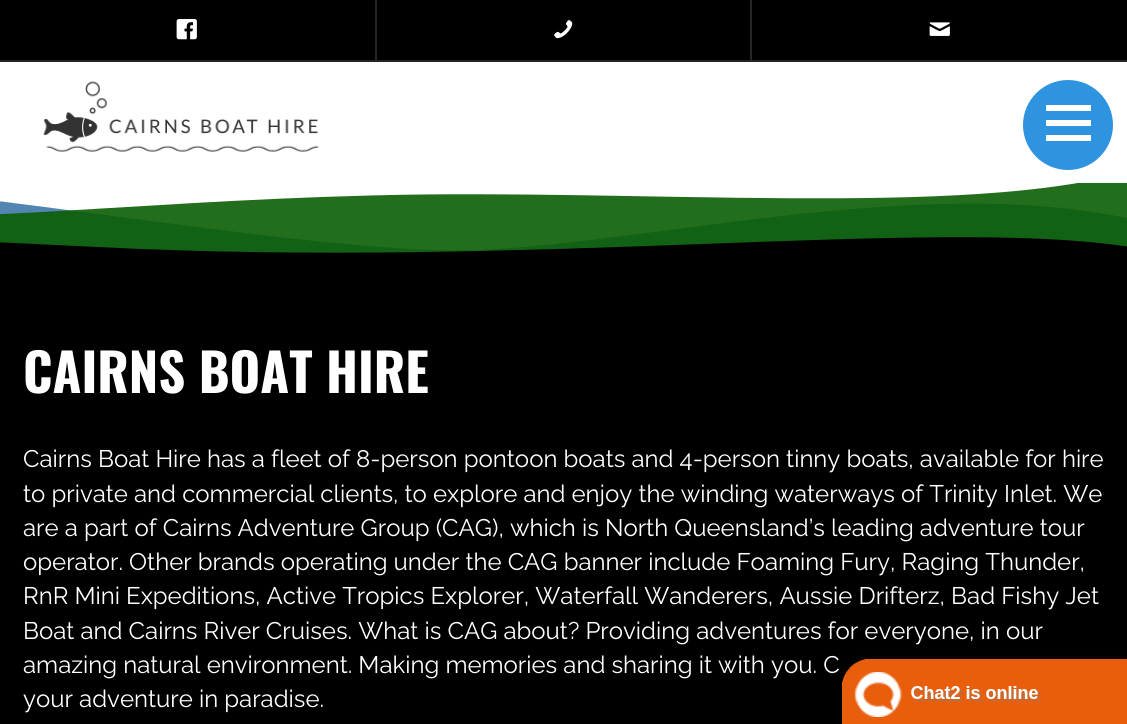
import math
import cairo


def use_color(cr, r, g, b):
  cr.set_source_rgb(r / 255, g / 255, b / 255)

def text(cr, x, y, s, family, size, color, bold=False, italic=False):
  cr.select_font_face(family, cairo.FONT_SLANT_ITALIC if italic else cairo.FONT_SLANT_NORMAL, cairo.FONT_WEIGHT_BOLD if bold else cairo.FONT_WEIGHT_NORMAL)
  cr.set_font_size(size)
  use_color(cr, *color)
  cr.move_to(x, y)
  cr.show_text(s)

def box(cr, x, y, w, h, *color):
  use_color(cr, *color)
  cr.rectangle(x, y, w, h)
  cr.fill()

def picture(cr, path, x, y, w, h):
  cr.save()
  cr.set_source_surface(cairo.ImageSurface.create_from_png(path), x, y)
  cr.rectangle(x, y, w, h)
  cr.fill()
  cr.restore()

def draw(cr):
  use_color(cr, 255, 255, 255)
  cr.paint()
  box(cr, 375, 0, 2, 62, 38, 38, 38)
  box(cr, 0, 60, 377, 2, 38, 38, 38)
  box(cr, 0, 0, 375, 60, 0, 0, 0)
  picture(cr, "img_01.png", 176, 19, 21, 21)
  box(cr, 750, 0, 2, 62, 38, 38, 38)
  box(cr, 377, 60, 750, 2, 38, 38, 38)
  box(cr, 377, 0, 373, 60, 0, 0, 0)
  picture(cr, "img_02.png", 554, 20, 19, 19)
  box(cr, 752, 0, 375, 60, 0, 0, 0)
  picture(cr, "img_03.png", 929, 22, 21, 14)
  picture(cr, "img_04.png", 43, 81, 276, 71)
  use_color(cr, 47, 148, 223)
  cr.arc(1068, 125, 45, 0, 2 * math.pi)
  cr.fill()
  box(cr, 1046, 120, 45, 6, 255, 255, 255)
  box(cr, 1046, 105, 45, 6, 255, 255, 255)
  box(cr, 1046, 135, 45, 6, 255, 255, 255)
  picture(cr, "img_05.png", 0, 183, 1127, 90)
  box(cr, 0, 273, 1127, 451, 0, 0, 0)
  picture(cr, "img_06.png", 842, 655, 285, 69)
  text(cr, 23, 393, "CAIRNS BOAT HIRE", "Oswald", 52.5, (255, 255, 255), bold=True)
  text(cr, 23, 467, "Cairns Boat Hire has a fleet of 8-person pontoon boats and 4-person tinny boats, available for hire", "Raleway", 24, (255, 255, 255))
  text(cr, 23, 502, "to private and commercial clients, to explore and enjoy the winding waterways of Trinity Inlet. We", "Raleway", 24, (255, 255, 255))
  text(cr, 23, 536, "are a part of Cairns Adventure Group (CAG), which is North Queensland’s leading adventure tour", "Raleway", 24, (255, 255, 255))
  text(cr, 23, 570, "operator. Other brands operating under the CAG banner include Foaming Fury, Raging Thunder,", "Raleway", 24, (255, 255, 255))
  text(cr, 23, 604, "RnR Mini Expeditions, Active Tropics Explorer, Waterfall Wanderers, Aussie Drifterz, Bad Fishy Jet", "Raleway", 24, (255, 255, 255))
  text(cr, 23, 639, "Boat and Cairns River Cruises. What is CAG about? Providing adventures for everyone, in our", "Raleway", 24, (255, 255, 255))
  text(cr, 23, 673, "amazing natural environment. Making memories and sharing it with you. C", "Raleway", 24, (255, 255, 255))
  text(cr, 23, 707, "your adventure in paradise.", "Raleway", 24, (255, 255, 255))


surface = cairo.ImageSurface(cairo.FORMAT_RGB24, 1127, 724)
cr = cairo.Context(surface)
options = cairo.FontOptions()
options.set_hint_metrics(cairo.HINT_METRICS_OFF)
options.set_hint_style(cairo.HINT_STYLE_NONE)
cr.set_font_options(options)
cr.set_miter_limit(4)
draw(cr)
surface.write_to_png("out.png")
